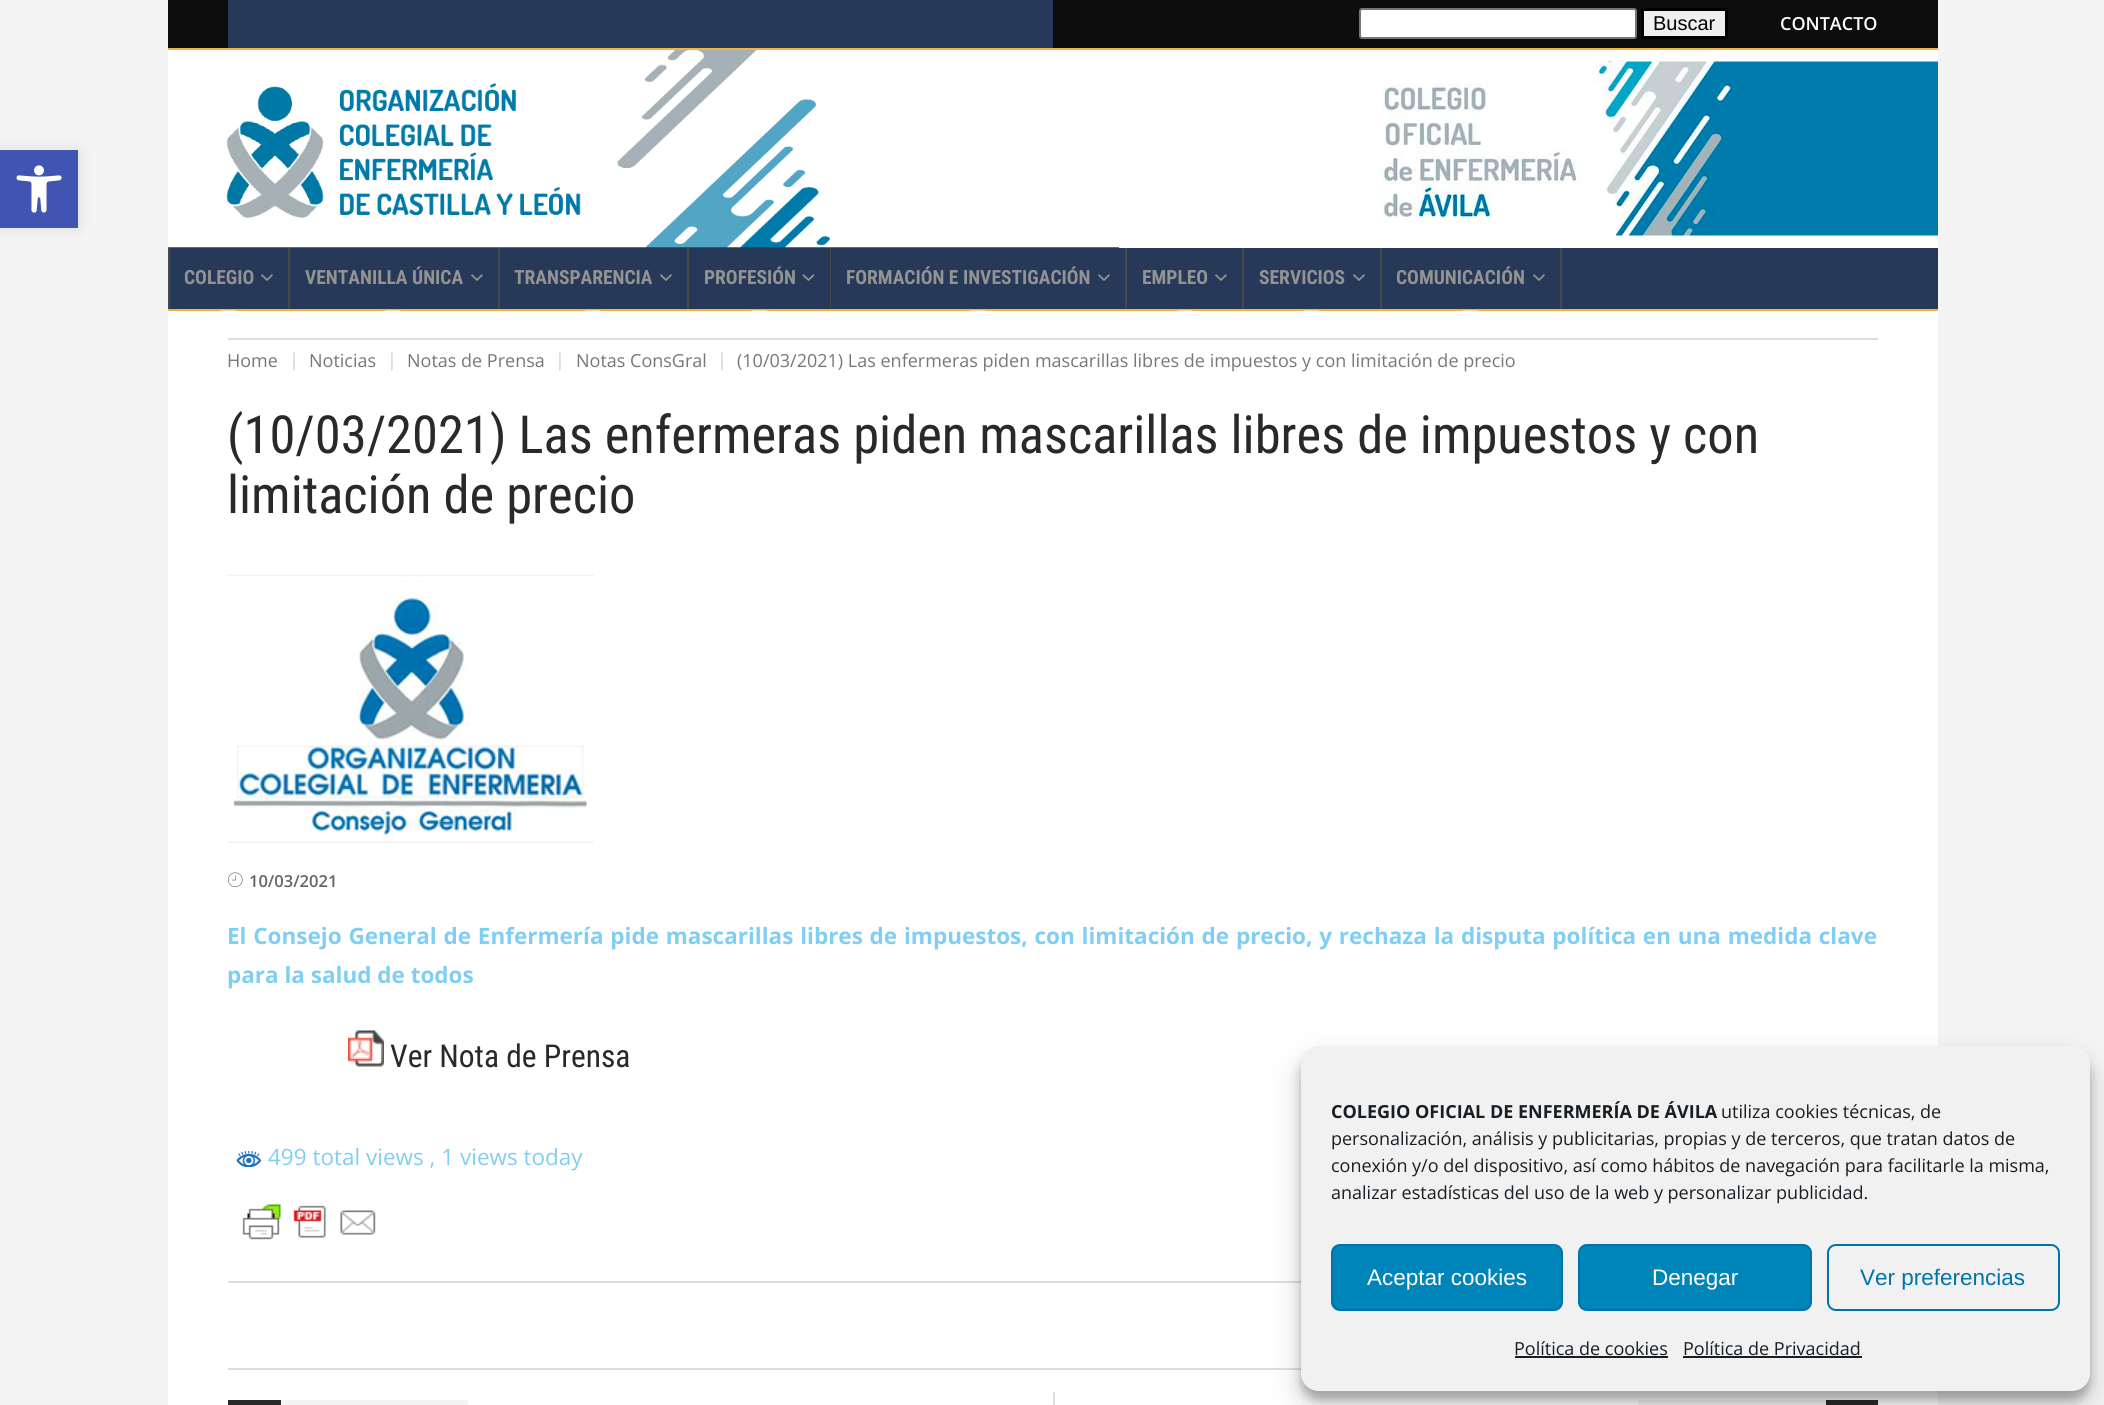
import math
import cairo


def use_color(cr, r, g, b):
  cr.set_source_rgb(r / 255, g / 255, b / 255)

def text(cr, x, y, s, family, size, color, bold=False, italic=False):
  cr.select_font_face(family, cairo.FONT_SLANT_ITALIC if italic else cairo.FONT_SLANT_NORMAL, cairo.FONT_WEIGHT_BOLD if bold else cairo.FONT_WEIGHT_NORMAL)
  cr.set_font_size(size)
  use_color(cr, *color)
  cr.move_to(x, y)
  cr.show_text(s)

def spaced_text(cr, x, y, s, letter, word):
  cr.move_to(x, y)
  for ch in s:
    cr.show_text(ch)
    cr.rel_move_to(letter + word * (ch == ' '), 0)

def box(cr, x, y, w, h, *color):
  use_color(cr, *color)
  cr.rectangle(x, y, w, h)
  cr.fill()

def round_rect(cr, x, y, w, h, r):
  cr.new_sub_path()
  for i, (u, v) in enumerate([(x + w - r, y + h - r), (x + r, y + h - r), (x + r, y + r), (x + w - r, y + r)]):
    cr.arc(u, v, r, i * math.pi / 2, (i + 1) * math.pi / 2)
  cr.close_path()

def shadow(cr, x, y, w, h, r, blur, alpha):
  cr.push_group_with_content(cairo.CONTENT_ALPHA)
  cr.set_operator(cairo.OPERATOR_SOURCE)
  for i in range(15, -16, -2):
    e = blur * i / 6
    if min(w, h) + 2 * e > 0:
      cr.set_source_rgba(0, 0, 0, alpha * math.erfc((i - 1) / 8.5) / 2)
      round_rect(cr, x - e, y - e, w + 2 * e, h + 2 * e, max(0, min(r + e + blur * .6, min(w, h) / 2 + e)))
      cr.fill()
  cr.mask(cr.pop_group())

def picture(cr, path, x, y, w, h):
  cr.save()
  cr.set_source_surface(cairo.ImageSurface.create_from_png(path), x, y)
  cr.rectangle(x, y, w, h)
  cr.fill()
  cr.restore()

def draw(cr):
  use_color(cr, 244, 244, 244)
  cr.paint()
  use_color(cr, 0, 0, 0)
  shadow(cr, 0, 150, 78, 78, 0, 7.5, 0.1)
  box(cr, 0, 150, 78, 78, 64, 84, 178)
  picture(cr, "img_01.png", 16, 165, 46, 48)
  box(cr, 168, 0, 1770, 48, 13, 13, 13)
  box(cr, 168, 48, 1770, 2, 242, 181, 65)
  box(cr, 228, 0, 825, 48, 38, 57, 88)
  use_color(cr, 255, 255, 255)
  round_rect(cr, 1360, 9, 276, 29, 2)
  cr.fill_preserve()
  use_color(cr, 118, 118, 118)
  cr.stroke()
  use_color(cr, 239, 239, 239)
  cr.rectangle(1642.5, 9.5, 84, 28)
  cr.fill_preserve()
  use_color(cr, 0, 0, 0)
  cr.set_line_width(3)
  cr.stroke()
  box(cr, 1119, 50, 819, 198, 255, 255, 255)
  box(cr, 168, 247, 951, 1, 38, 57, 88)
  picture(cr, "img_02.png", 168, 50, 951, 198)
  picture(cr, "img_03.png", 1382, 61, 556, 175)
  box(cr, 168, 309, 1770, 2, 242, 181, 65)
  box(cr, 170, 248, 1768, 61, 38, 57, 88)
  box(cr, 288, 248, 2, 61, 73, 72, 72)
  box(cr, 168, 248, 2, 61, 73, 72, 72)
  picture(cr, "img_04.png", 261, 274, 12, 7)
  box(cr, 168, 311, 1770, 1094, 255, 255, 255)
  cr.new_path()
  cr.move_to(220.5, 310.5)
  cr.line_to(235.5, 310.5)
  cr.line_to(228, 319.5)
  cr.close_path()
  cr.fill()
  box(cr, 498, 248, 2, 61, 73, 72, 72)
  picture(cr, "img_04.png", 471, 274, 12, 7)
  use_color(cr, 255, 255, 255)
  cr.new_path()
  cr.move_to(385.5, 310.5)
  cr.line_to(400.5, 310.5)
  cr.line_to(393, 319.5)
  cr.close_path()
  cr.fill()
  box(cr, 687, 248, 2, 61, 73, 72, 72)
  picture(cr, "img_04.png", 660, 274, 12, 7)
  use_color(cr, 255, 255, 255)
  cr.new_path()
  cr.move_to(585, 310.5)
  cr.line_to(600, 310.5)
  cr.line_to(592.5, 319.5)
  cr.close_path()
  cr.fill()
  box(cr, 830, 248, 1, 61, 73, 72, 72)
  picture(cr, "img_05.png", 802, 274, 13, 7)
  use_color(cr, 255, 255, 255)
  cr.new_path()
  cr.move_to(751.5, 310.5)
  cr.line_to(766.5, 310.5)
  cr.line_to(759, 319.5)
  cr.close_path()
  cr.fill()
  box(cr, 1125, 248, 2, 61, 73, 72, 72)
  picture(cr, "img_04.png", 1098, 274, 12, 7)
  use_color(cr, 255, 255, 255)
  cr.new_path()
  cr.move_to(970.5, 310.5)
  cr.line_to(985.5, 310.5)
  cr.line_to(978, 319.5)
  cr.close_path()
  cr.fill()
  box(cr, 1242, 248, 2, 61, 73, 72, 72)
  picture(cr, "img_04.png", 1215, 274, 12, 7)
  use_color(cr, 255, 255, 255)
  cr.new_path()
  cr.move_to(1177.5, 310.5)
  cr.line_to(1192.5, 310.5)
  cr.line_to(1185, 319.5)
  cr.close_path()
  cr.fill()
  box(cr, 1380, 248, 2, 61, 73, 72, 72)
  picture(cr, "img_04.png", 1353, 274, 12, 7)
  use_color(cr, 255, 255, 255)
  cr.new_path()
  cr.move_to(1303.5, 310.5)
  cr.line_to(1318.5, 310.5)
  cr.line_to(1311, 319.5)
  cr.close_path()
  cr.fill()
  box(cr, 1560, 248, 2, 61, 73, 72, 72)
  picture(cr, "img_04.png", 1533, 274, 12, 7)
  use_color(cr, 255, 255, 255)
  cr.new_path()
  cr.move_to(1462.5, 310.5)
  cr.line_to(1477.5, 310.5)
  cr.line_to(1470, 319.5)
  cr.close_path()
  cr.fill()
  box(cr, 228, 338, 1650, 2, 221, 221, 221)
  box(cr, 228, 1368, 1073, 2, 221, 221, 221)
  picture(cr, "img_06.png", 228, 574, 366, 269)
  picture(cr, "img_07.png", 228, 872, 15, 16)
  picture(cr, "img_08.png", 348, 1030, 36, 37)
  picture(cr, "img_09.png", 236, 1151, 26, 16)
  picture(cr, "img_10.png", 242, 1204, 134, 36)
  box(cr, 228, 1281, 1073, 2, 221, 221, 221)
  box(cr, 281, 1400, 187, 5, 244, 244, 244)
  box(cr, 228, 1400, 53, 5, 41, 41, 41)
  box(cr, 1053, 1392, 2, 13, 221, 221, 221)
  box(cr, 1638, 1400, 188, 5, 244, 244, 244)
  box(cr, 1826, 1400, 52, 5, 41, 41, 41)
  use_color(cr, 0, 0, 0)
  shadow(cr, 1301, 1055, 789, 345, 18, 4.5, 0.23)
  shadow(cr, 1301, 1061, 789, 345, 18, 15, 0.19)
  use_color(cr, 241, 241, 241)
  round_rect(cr, 1301, 1046, 789, 345, 18)
  cr.fill()
  use_color(cr, 0, 133, 186)
  round_rect(cr, 1332, 1245, 230, 65, 8)
  cr.fill_preserve()
  use_color(cr, 0, 115, 170)
  cr.set_line_width(2)
  cr.stroke()
  use_color(cr, 0, 133, 186)
  round_rect(cr, 1579, 1245, 232, 65, 8)
  cr.fill_preserve()
  use_color(cr, 0, 115, 170)
  cr.stroke()
  round_rect(cr, 1828, 1245, 231, 65, 8)
  cr.stroke()
  box(cr, 1515, 1356, 153, 2, 25, 30, 35)
  box(cr, 1683, 1356, 179, 2, 25, 30, 35)
  text(cr, 1653, 30, "Buscar", "Liberation Sans", 20, (0, 0, 0))
  text(cr, 1780, 30, "CONTACTO", "Open Sans SemiBold", 18, (255, 255, 255))
  text(cr, 184, 284, "COLEGIO", "Roboto Condensed", 19.5, (148, 147, 147), bold=True)
  text(cr, 305, 284, "VENTANILLA ÚNICA", "Roboto Condensed", 19.5, (148, 147, 147), bold=True)
  text(cr, 514, 284, "TRANSPARENCIA", "Roboto Condensed", 19.5, (148, 147, 147), bold=True)
  text(cr, 704, 284, "PROFESIÓN", "Roboto Condensed", 19.5, (148, 147, 147), bold=True)
  text(cr, 846, 284, "FORMACIÓN E INVESTIGACIÓN", "Roboto Condensed", 19.5, (148, 147, 147), bold=True)
  text(cr, 1142, 284, "EMPLEO", "Roboto Condensed", 19.5, (148, 147, 147), bold=True)
  text(cr, 1259, 284, "SERVICIOS", "Roboto Condensed", 19.5, (148, 147, 147), bold=True)
  text(cr, 1396, 284, "COMUNICACIÓN", "Roboto Condensed", 19.5, (148, 147, 147), bold=True)
  text(cr, 227, 367, "Home", "Open Sans", 18, (119, 119, 119))
  text(cr, 289, 366, "|", "Open Sans", 18, (204, 204, 204))
  text(cr, 309, 367, "Noticias", "Open Sans", 18, (119, 119, 119))
  text(cr, 387, 366, "|", "Open Sans", 18, (204, 204, 204))
  text(cr, 407, 367, "Notas de Prensa", "Open Sans", 18, (119, 119, 119))
  text(cr, 555, 366, "|", "Open Sans", 18, (204, 204, 204))
  text(cr, 576, 367, "Notas ConsGral", "Open Sans", 18, (119, 119, 119))
  text(cr, 717, 366, "|", "Open Sans", 18, (204, 204, 204))
  text(cr, 737, 367, "(10/03/2021) Las enfermeras piden mascarillas libres de impuestos y con limitación de precio", "Open Sans", 18, (119, 119, 119))
  text(cr, 227, 453, "(10/03/2021) Las enfermeras piden mascarillas libres de impuestos y con", "Roboto Condensed", 52.5, (41, 41, 41))
  text(cr, 227, 513, "limitación de precio", "Roboto Condensed", 52.5, (41, 41, 41))
  text(cr, 249, 887, "10/03/2021", "Open Sans SemiBold", 16.5, (102, 102, 102))
  cr.select_font_face("Open Sans", cairo.FONT_SLANT_NORMAL, cairo.FONT_WEIGHT_BOLD)
  cr.set_font_size(22.5)
  use_color(cr, 128, 206, 243)
  spaced_text(cr, 227, 944, "El Consejo General de Enfermería pide mascarillas libres de impuestos, con limitación de precio, y rechaza la disputa política en una medida clave", 0, 0.95)
  text(cr, 227, 983, "para la salud de todos", "Open Sans", 22.5, (128, 206, 243), bold=True)
  text(cr, 390, 1067, "Ver Nota de Prensa", "Roboto Condensed", 31.5, (41, 41, 41))
  text(cr, 268, 1165, "499 total views , 1 views today", "Open Sans", 22.5, (128, 206, 243))
  text(cr, 1331, 1118, "COLEGIO OFICIAL DE ENFERMERÍA DE ÁVILA", "Open Sans", 18, (25, 30, 35), bold=True)
  text(cr, 1721, 1118, "utiliza cookies técnicas, de", "Open Sans", 18, (25, 30, 35))
  text(cr, 1331, 1145, "personalización, análisis y publicitarias, propias y de terceros, que tratan datos de", "Open Sans", 18, (25, 30, 35))
  text(cr, 1331, 1172, "conexión y/o del dispositivo, así como hábitos de navegación para facilitarle la misma,", "Open Sans", 18, (25, 30, 35))
  text(cr, 1331, 1199, "analizar estadísticas del uso de la web y personalizar publicidad.", "Open Sans", 18, (25, 30, 35))
  text(cr, 1367, 1285, "Aceptar cookies", "Liberation Sans", 22.5, (255, 255, 255))
  text(cr, 1652, 1285, "Denegar", "Liberation Sans", 22.5, (255, 255, 255))
  text(cr, 1860, 1285, "Ver preferencias", "Liberation Sans", 22.5, (0, 115, 170))
  text(cr, 1514, 1355, "Política de cookies", "Open Sans", 18, (25, 30, 35))
  text(cr, 1683, 1355, "Política de Privacidad", "Open Sans", 18, (25, 30, 35))


surface = cairo.ImageSurface(cairo.FORMAT_RGB24, 2104, 1405)
cr = cairo.Context(surface)
options = cairo.FontOptions()
options.set_hint_metrics(cairo.HINT_METRICS_OFF)
options.set_hint_style(cairo.HINT_STYLE_NONE)
cr.set_font_options(options)
cr.set_miter_limit(4)
draw(cr)
surface.write_to_png("out.png")
